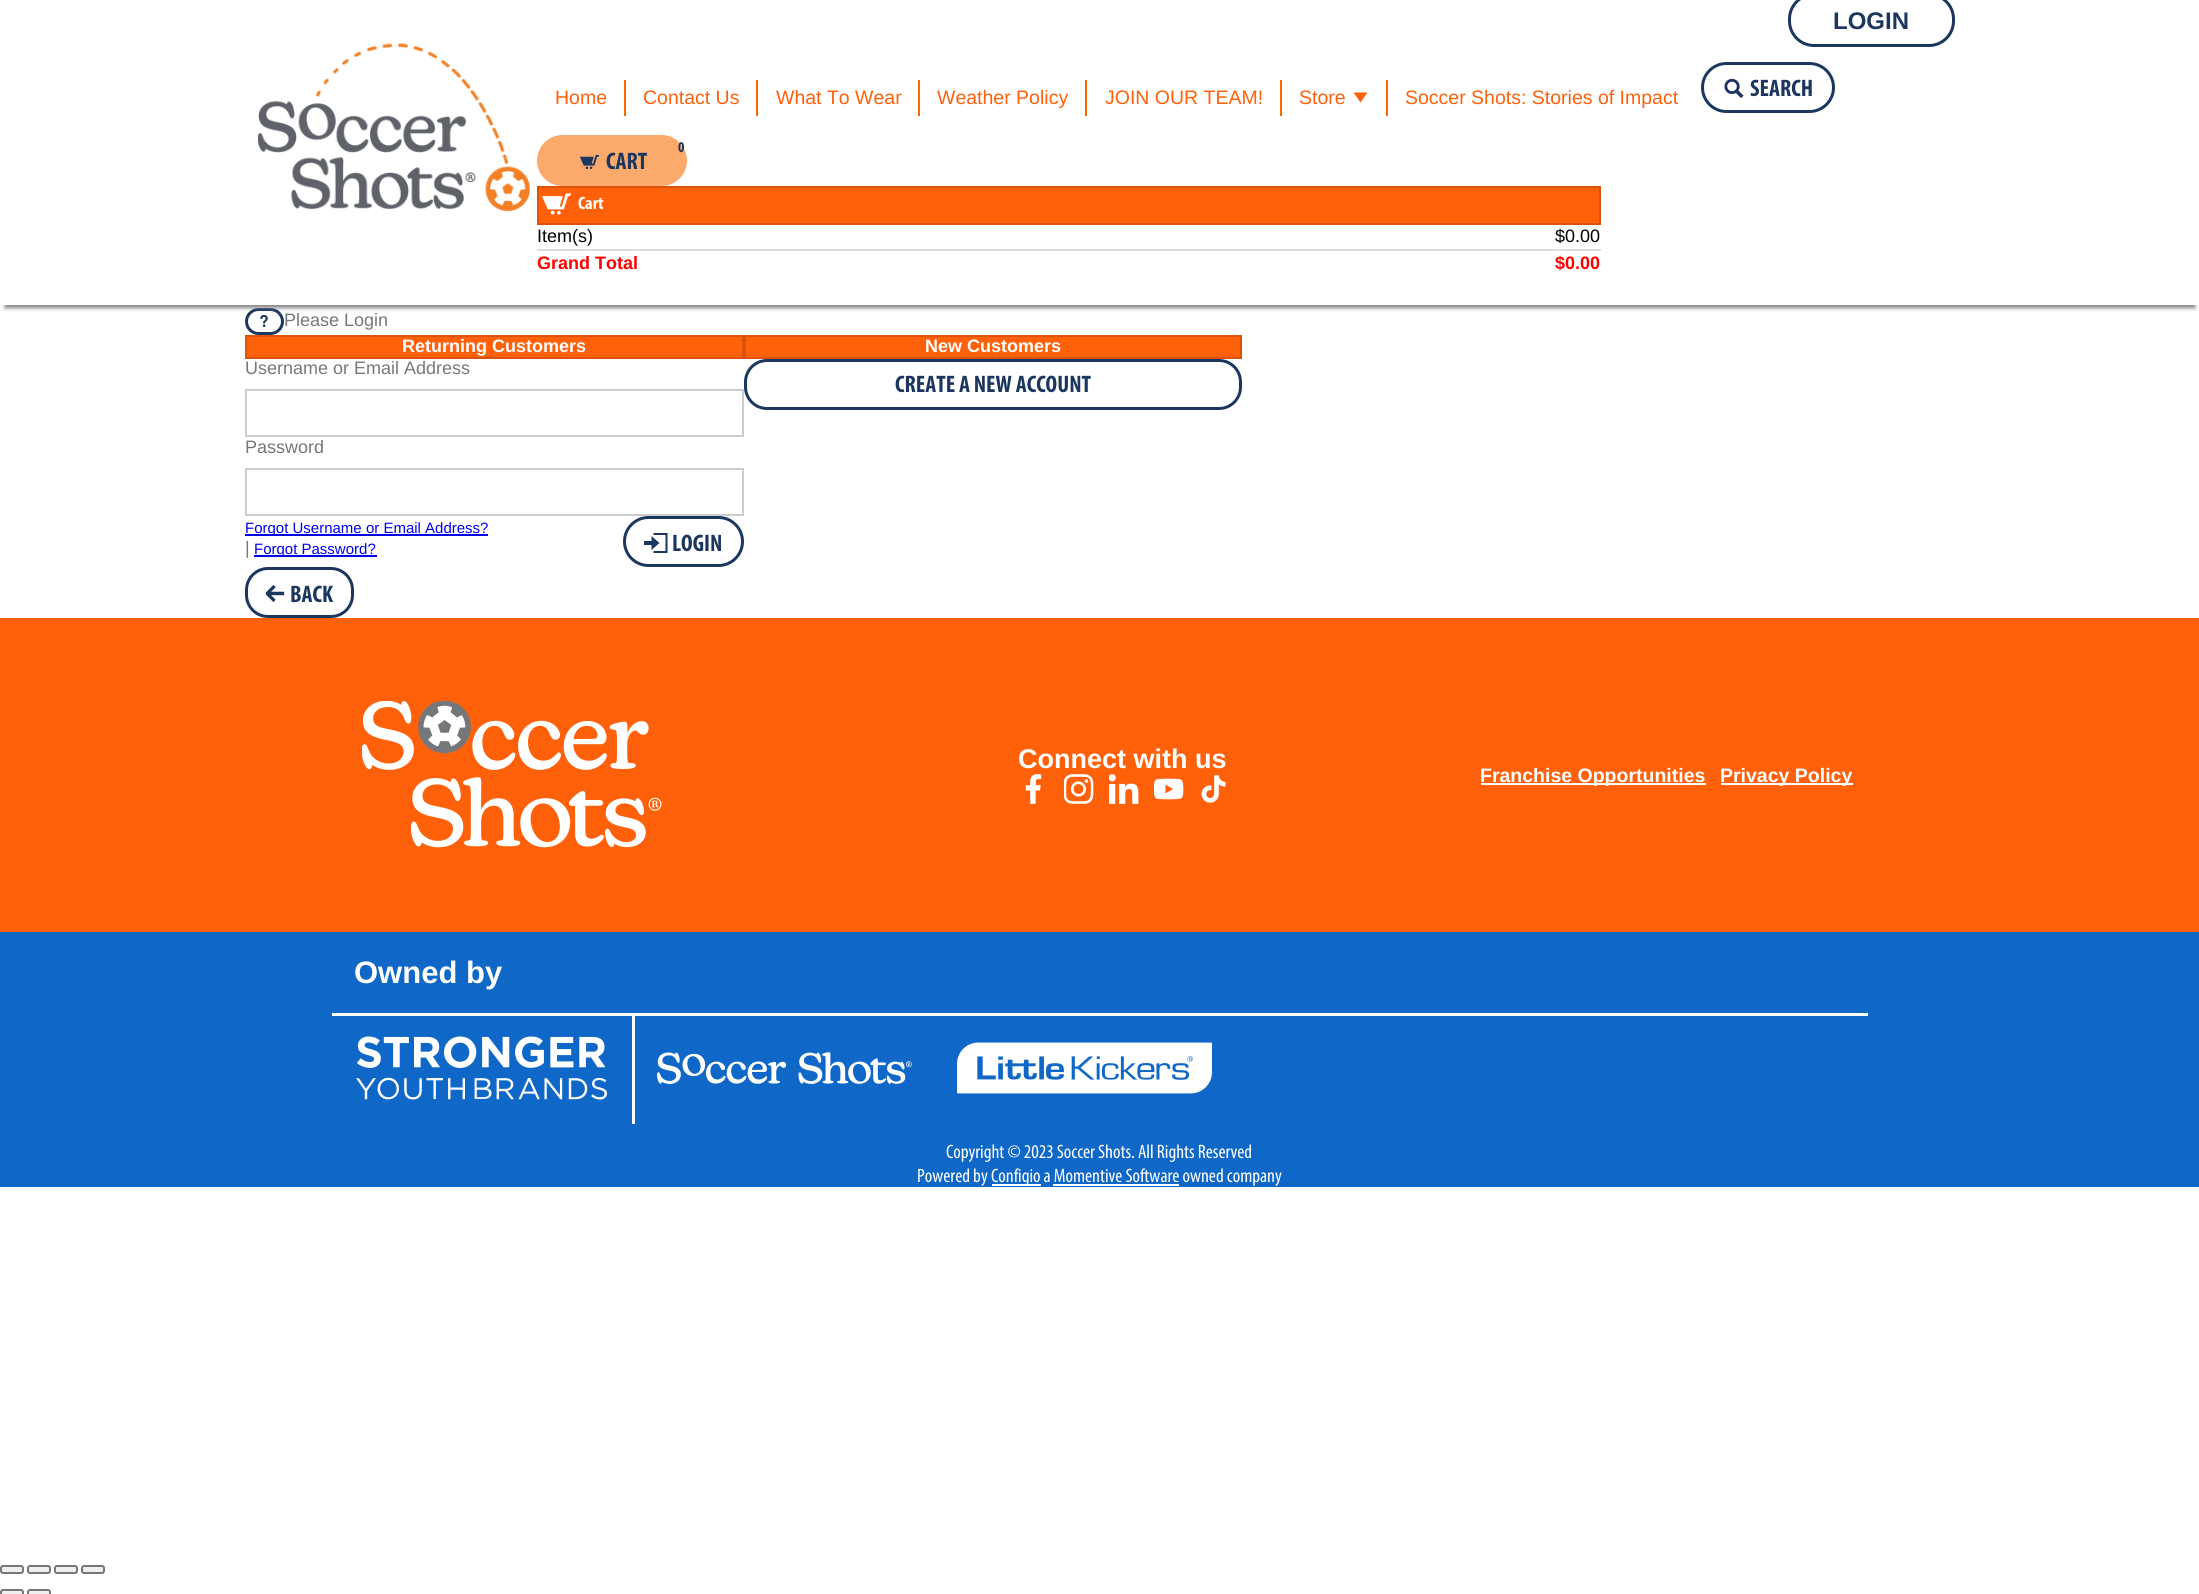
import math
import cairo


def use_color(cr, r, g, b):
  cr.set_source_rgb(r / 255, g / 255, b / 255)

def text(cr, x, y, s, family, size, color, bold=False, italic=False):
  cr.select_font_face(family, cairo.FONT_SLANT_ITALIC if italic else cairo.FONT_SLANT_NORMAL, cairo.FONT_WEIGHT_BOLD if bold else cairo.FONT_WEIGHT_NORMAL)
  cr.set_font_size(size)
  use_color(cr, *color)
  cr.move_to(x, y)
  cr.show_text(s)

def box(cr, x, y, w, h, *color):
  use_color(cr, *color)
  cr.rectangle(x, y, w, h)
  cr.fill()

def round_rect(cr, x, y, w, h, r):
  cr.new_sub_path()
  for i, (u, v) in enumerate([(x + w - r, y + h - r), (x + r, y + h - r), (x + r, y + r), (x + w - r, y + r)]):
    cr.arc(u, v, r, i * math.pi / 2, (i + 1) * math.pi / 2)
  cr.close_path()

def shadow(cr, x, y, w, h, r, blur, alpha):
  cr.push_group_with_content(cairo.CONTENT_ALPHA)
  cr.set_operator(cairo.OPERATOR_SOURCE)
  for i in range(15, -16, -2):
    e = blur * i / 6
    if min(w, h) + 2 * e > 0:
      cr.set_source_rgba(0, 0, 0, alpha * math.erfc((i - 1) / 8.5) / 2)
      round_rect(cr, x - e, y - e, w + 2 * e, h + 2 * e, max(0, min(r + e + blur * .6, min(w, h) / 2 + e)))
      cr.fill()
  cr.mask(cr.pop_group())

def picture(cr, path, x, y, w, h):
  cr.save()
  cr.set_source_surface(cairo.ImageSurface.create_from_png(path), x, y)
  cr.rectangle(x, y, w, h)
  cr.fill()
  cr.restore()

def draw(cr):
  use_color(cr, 255, 255, 255)
  cr.paint()
  round_rect(cr, 246.5, 309.5, 36, 24, 12)
  use_color(cr, 27, 54, 95)
  cr.set_line_width(3)
  cr.stroke()
  use_color(cr, 130, 130, 130)
  shadow(cr, 5, -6, 2190, 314, 0, 2, 1)
  box(cr, 1, 0, 2198, 305, 255, 255, 255)
  picture(cr, "img_01.png", 258, 43, 272, 168)
  round_rect(cr, 1789.5, -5.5, 164, 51, 24.5)
  use_color(cr, 27, 54, 95)
  cr.stroke()
  box(cr, 624, 80, 2, 36, 255, 96, 10)
  box(cr, 756, 80, 2, 36, 255, 96, 10)
  box(cr, 918, 80, 2, 36, 255, 96, 10)
  box(cr, 1085, 80, 2, 36, 255, 96, 10)
  box(cr, 1280, 80, 2, 36, 255, 96, 10)
  cr.new_path()
  cr.move_to(1360.5, 102.5)
  cr.line_to(1353.5, 92.5)
  cr.line_to(1367.5, 92.5)
  cr.close_path()
  cr.fill()
  box(cr, 1386, 80, 2, 36, 255, 96, 10)
  round_rect(cr, 1702.5, 63.5, 131, 48, 24)
  use_color(cr, 27, 54, 95)
  cr.stroke()
  picture(cr, "img_02.png", 1724, 78, 20, 20)
  use_color(cr, 252, 170, 107)
  round_rect(cr, 538.5, 136.5, 147, 48, 24)
  cr.fill_preserve()
  cr.stroke()
  picture(cr, "img_03.png", 579, 154, 21, 15)
  use_color(cr, 255, 96, 10)
  cr.rectangle(538, 187, 1062, 37)
  cr.fill_preserve()
  use_color(cr, 219, 83, 9)
  cr.set_line_width(2)
  cr.stroke()
  picture(cr, "img_04.png", 542, 193, 29, 22)
  box(cr, 537, 249, 1064, 2, 221, 221, 221)
  picture(cr, "img_05.png", 260, 315, 8, 12)
  use_color(cr, 255, 96, 10)
  cr.rectangle(246, 336, 497, 22)
  cr.fill_preserve()
  use_color(cr, 219, 83, 9)
  cr.stroke()
  cr.rectangle(246, 390, 497, 46)
  use_color(cr, 204, 204, 204)
  cr.stroke()
  cr.rectangle(246, 469, 497, 46)
  cr.stroke()
  box(cr, 245, 534, 243, 2, 0, 0, 238)
  box(cr, 254, 555, 123, 2, 0, 0, 238)
  round_rect(cr, 624.5, 517.5, 118, 48, 24)
  use_color(cr, 27, 54, 95)
  cr.set_line_width(3)
  cr.stroke()
  picture(cr, "img_06.png", 644, 533, 24, 20)
  use_color(cr, 255, 96, 10)
  cr.rectangle(745, 336, 496, 22)
  cr.fill_preserve()
  use_color(cr, 219, 83, 9)
  cr.set_line_width(2)
  cr.stroke()
  round_rect(cr, 745.5, 360.5, 495, 48, 21.5)
  use_color(cr, 27, 54, 95)
  cr.set_line_width(3)
  cr.stroke()
  round_rect(cr, 246.5, 568.5, 106, 48, 21.5)
  cr.stroke()
  picture(cr, "img_07.png", 266, 585, 19, 17)
  box(cr, 0, 618, 2199, 314, 255, 96, 10)
  picture(cr, "img_08.png", 362, 701, 300, 147)
  picture(cr, "img_09.png", 1025, 774, 17, 30)
  picture(cr, "img_10.png", 1064, 774, 30, 30)
  picture(cr, "img_11.png", 1109, 774, 30, 30)
  picture(cr, "img_12.png", 1154, 778, 30, 22)
  picture(cr, "img_13.png", 1201, 775, 25, 28)
  box(cr, 1481, 783, 225, 2, 255, 255, 255)
  box(cr, 1721, 783, 132, 2, 255, 255, 255)
  box(cr, 0, 932, 2199, 255, 15, 104, 199)
  box(cr, 332, 1013, 1536, 3, 255, 255, 255)
  picture(cr, "img_14.png", 356, 1036, 252, 64)
  box(cr, 632, 1016, 3, 108, 255, 255, 255)
  picture(cr, "img_15.png", 657, 1052, 255, 32)
  picture(cr, "img_16.png", 957, 1042, 255, 52)
  box(cr, 992, 1184, 49, 2, 255, 255, 255)
  box(cr, 1053, 1184, 126, 2, 255, 255, 255)
  use_color(cr, 239, 239, 239)
  round_rect(cr, 1, 1566, 22, 7, 2)
  cr.fill_preserve()
  use_color(cr, 118, 118, 118)
  cr.set_line_width(2)
  cr.stroke()
  use_color(cr, 239, 239, 239)
  round_rect(cr, 28, 1566, 22, 7, 2)
  cr.fill_preserve()
  use_color(cr, 118, 118, 118)
  cr.stroke()
  use_color(cr, 239, 239, 239)
  round_rect(cr, 55, 1566, 22, 7, 2)
  cr.fill_preserve()
  use_color(cr, 118, 118, 118)
  cr.stroke()
  use_color(cr, 239, 239, 239)
  round_rect(cr, 82, 1566, 22, 7, 2)
  cr.fill_preserve()
  use_color(cr, 118, 118, 118)
  cr.stroke()
  use_color(cr, 239, 239, 239)
  round_rect(cr, 1, 1590, 22, 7, 2)
  cr.fill_preserve()
  use_color(cr, 118, 118, 118)
  cr.stroke()
  use_color(cr, 239, 239, 239)
  round_rect(cr, 28, 1590, 22, 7, 2)
  cr.fill_preserve()
  use_color(cr, 118, 118, 118)
  cr.stroke()
  text(cr, 1833, 29, "LOGIN", "Liberation Sans", 24, (27, 54, 95), bold=True)
  text(cr, 555, 104, "Home", "Liberation Sans", 19.5, (255, 96, 10))
  text(cr, 643, 104, "Contact Us", "Liberation Sans", 19.5, (255, 96, 10))
  text(cr, 776, 104, "What To Wear", "Liberation Sans", 19.5, (255, 96, 10))
  text(cr, 937, 104, "Weather Policy", "Liberation Sans", 19.5, (255, 96, 10))
  text(cr, 1105, 104, "JOIN OUR TEAM!", "Liberation Sans", 19.5, (255, 96, 10))
  text(cr, 1299, 104, "Store", "Liberation Sans", 19.5, (255, 96, 10))
  text(cr, 1405, 104, "Soccer Shots: Stories of Impact", "Liberation Sans", 19.5, (255, 96, 10))
  text(cr, 1750, 96, "SEARCH", "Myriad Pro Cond", 24, (27, 54, 95), bold=True)
  text(cr, 678, 152, "0", "Myriad Pro Cond", 15, (27, 54, 95), bold=True)
  text(cr, 606, 169, "CART", "Myriad Pro Cond", 24, (27, 54, 95), bold=True)
  text(cr, 578, 209, "Cart", "Myriad Pro Cond", 18, (255, 255, 255), bold=True)
  text(cr, 537, 242, "Item(s)", "Liberation Sans", 18, (0, 0, 0))
  text(cr, 1555, 242, "$0.00", "Liberation Sans", 18, (0, 0, 0))
  text(cr, 537, 269, "Grand Total", "Liberation Sans", 18, (255, 0, 0), bold=True)
  text(cr, 1555, 269, "$0.00", "Liberation Sans", 18, (255, 0, 0), bold=True)
  text(cr, 284, 326, "Please Login", "Liberation Sans", 18, (117, 120, 123))
  text(cr, 402, 352, "Returning Customers", "Liberation Sans", 18, (255, 255, 255), bold=True)
  text(cr, 245, 374, "Username or Email Address", "Liberation Sans", 18, (117, 120, 123))
  text(cr, 245, 453, "Password", "Liberation Sans", 18, (117, 120, 123))
  text(cr, 245, 533, "Forgot Username or Email Address?", "Liberation Sans", 15, (0, 0, 238))
  text(cr, 245, 554, "|", "Liberation Sans", 18, (117, 120, 123))
  text(cr, 254, 554, "Forgot Password?", "Liberation Sans", 15, (0, 0, 238))
  text(cr, 672, 551, "LOGIN", "Myriad Pro Cond", 24, (27, 54, 95), bold=True)
  text(cr, 925, 352, "New Customers", "Liberation Sans", 18, (255, 255, 255), bold=True)
  text(cr, 895, 392, "CREATE A NEW ACCOUNT", "Myriad Pro Cond", 24, (27, 54, 95), bold=True)
  text(cr, 290, 602, "BACK", "Myriad Pro Cond", 24, (27, 54, 95), bold=True)
  text(cr, 1018, 768, "Connect with us", "Liberation Sans", 27, (255, 255, 255), bold=True)
  text(cr, 1480, 782, "Franchise Opportunities", "Liberation Sans", 19.5, (255, 255, 255), bold=True)
  text(cr, 1720, 782, "Privacy Policy", "Liberation Sans", 19.5, (255, 255, 255), bold=True)
  text(cr, 354, 983, "Owned by", "Liberation Sans", 31, (255, 255, 255), bold=True)
  text(cr, 946, 1158, "Copyright © 2023 Soccer Shots. All Rights Reserved", "Myriad Pro Cond", 19.5, (255, 255, 255))
  text(cr, 917, 1182, "Powered by", "Myriad Pro Cond", 19.5, (255, 255, 255))
  text(cr, 991, 1182, "Configio a Momentive Software owned company", "Myriad Pro Cond", 19.5, (255, 255, 255))


surface = cairo.ImageSurface(cairo.FORMAT_RGB24, 2199, 1594)
cr = cairo.Context(surface)
options = cairo.FontOptions()
options.set_hint_metrics(cairo.HINT_METRICS_OFF)
options.set_hint_style(cairo.HINT_STYLE_NONE)
cr.set_font_options(options)
cr.set_miter_limit(4)
draw(cr)
surface.write_to_png("out.png")
